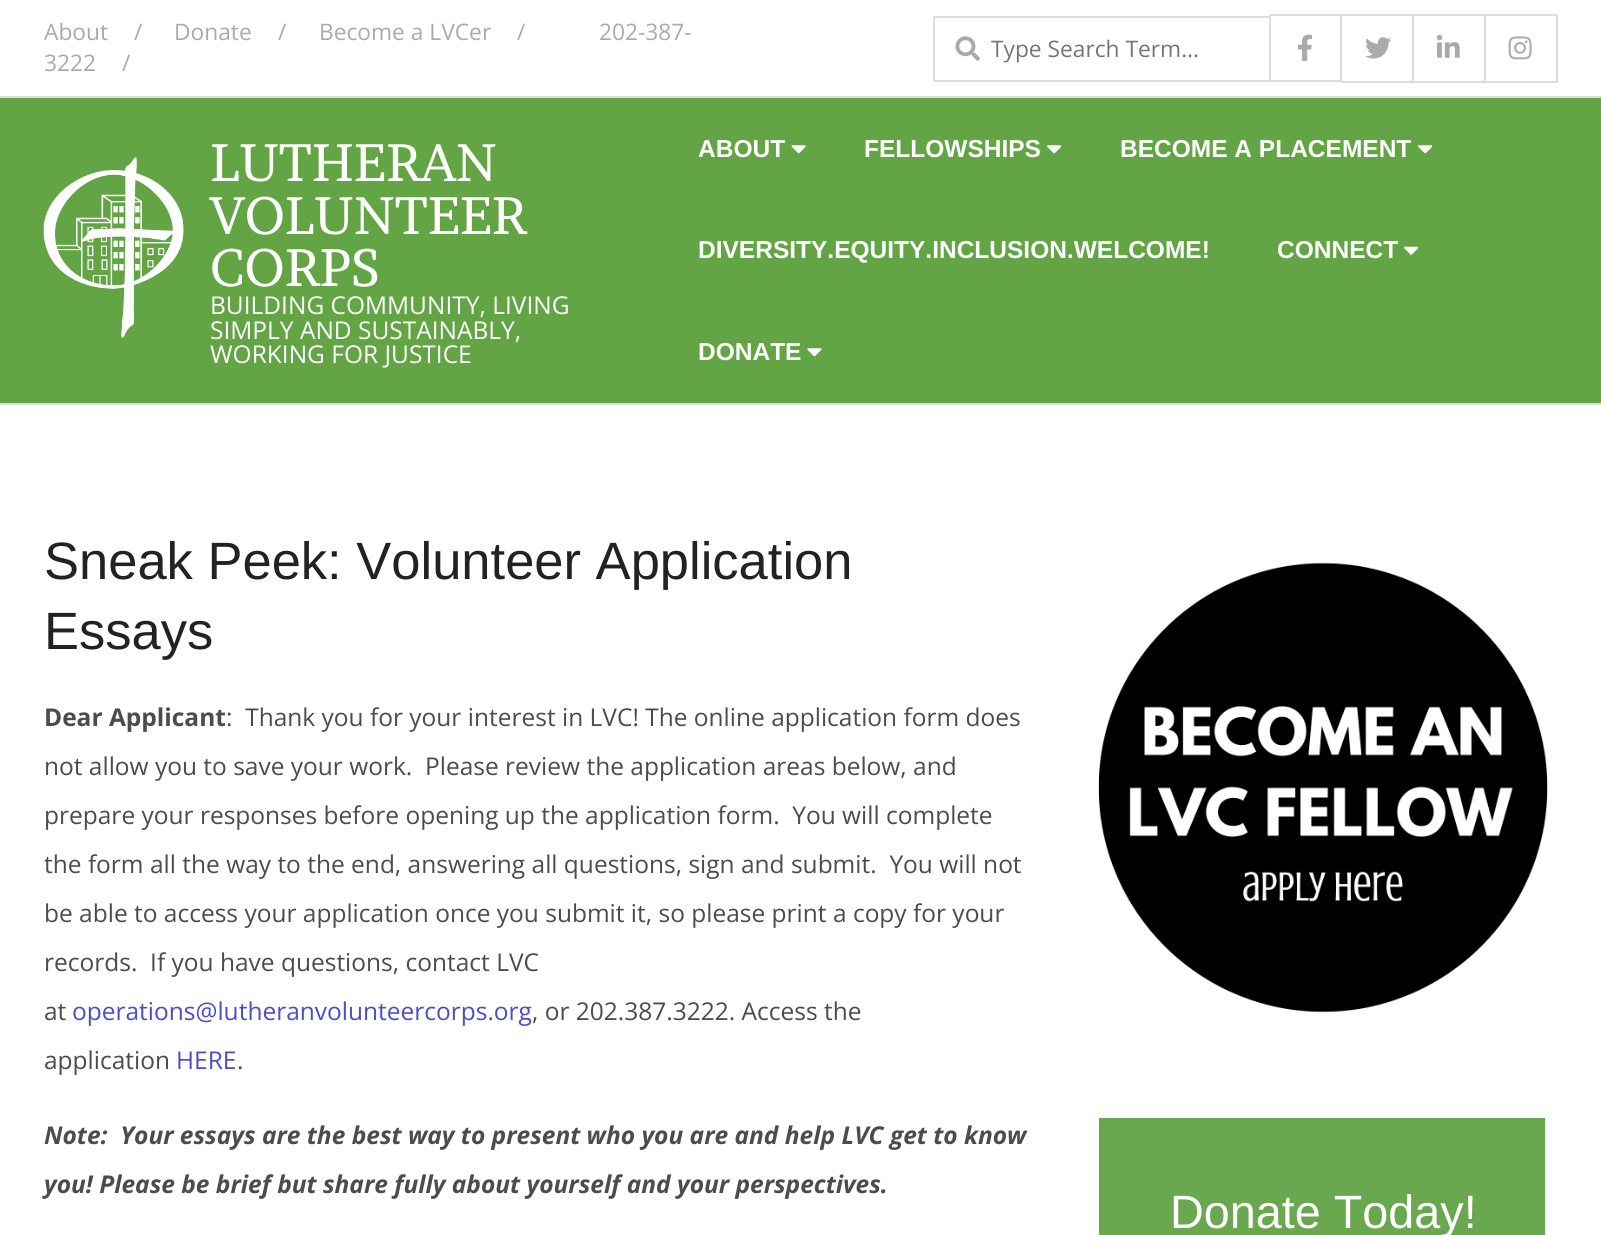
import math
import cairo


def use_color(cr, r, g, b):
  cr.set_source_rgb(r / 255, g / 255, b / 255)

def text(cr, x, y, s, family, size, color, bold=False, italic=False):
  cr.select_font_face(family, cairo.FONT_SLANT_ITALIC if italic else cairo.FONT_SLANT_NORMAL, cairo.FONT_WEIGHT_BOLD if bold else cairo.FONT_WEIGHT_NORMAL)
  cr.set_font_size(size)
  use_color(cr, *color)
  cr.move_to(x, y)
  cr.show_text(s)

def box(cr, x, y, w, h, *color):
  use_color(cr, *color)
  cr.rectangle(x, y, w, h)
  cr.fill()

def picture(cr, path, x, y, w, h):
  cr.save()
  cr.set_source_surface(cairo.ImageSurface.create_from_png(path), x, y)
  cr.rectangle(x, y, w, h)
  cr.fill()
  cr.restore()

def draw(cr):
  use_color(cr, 255, 255, 255)
  cr.paint()
  cr.rectangle(1270, 15, 71, 66)
  use_color(cr, 221, 221, 221)
  cr.stroke()
  cr.rectangle(934, 17, 336, 64)
  cr.stroke()
  picture(cr, "img_01.png", 955, 36, 25, 25)
  picture(cr, "img_02.png", 1297, 34, 15, 27)
  box(cr, 1342, 14, 216, 2, 221, 221, 221)
  box(cr, 1412, 14, 2, 68, 221, 221, 221)
  box(cr, 1342, 81, 72, 2, 221, 221, 221)
  picture(cr, "img_03.png", 1365, 37, 26, 22)
  box(cr, 1484, 14, 2, 68, 221, 221, 221)
  box(cr, 1414, 81, 72, 2, 221, 221, 221)
  picture(cr, "img_04.png", 1436, 34, 24, 24)
  box(cr, 1556, 14, 2, 68, 221, 221, 221)
  box(cr, 1486, 81, 72, 2, 221, 221, 221)
  picture(cr, "img_05.png", 1508, 36, 24, 24)
  box(cr, 0, 98, 1601, 305, 99, 164, 69)
  box(cr, 0, 96, 1601, 2, 221, 221, 221)
  box(cr, 0, 403, 1601, 2, 221, 221, 221)
  picture(cr, "img_06.png", 43, 157, 141, 181)
  picture(cr, "img_07.png", 791, 145, 15, 9)
  picture(cr, "img_08.png", 1047, 145, 15, 9)
  picture(cr, "img_08.png", 1418, 145, 15, 9)
  picture(cr, "img_09.png", 1404, 246, 15, 9)
  picture(cr, "img_10.png", 807, 348, 15, 9)
  picture(cr, "img_11.png", 1098, 562, 450, 451)
  box(cr, 1099, 1118, 446, 117, 106, 168, 79)
  text(cr, 44, 40, "About", "Open Sans", 22.75, (170, 170, 170))
  text(cr, 134, 40, "/", "Open Sans", 22.75, (170, 170, 170))
  text(cr, 174, 40, "Donate", "Open Sans", 22.75, (170, 170, 170))
  text(cr, 278, 40, "/", "Open Sans", 22.75, (170, 170, 170))
  text(cr, 319, 40, "Become a LVCer", "Open Sans", 22.75, (170, 170, 170))
  text(cr, 517, 40, "/", "Open Sans", 22.75, (170, 170, 170))
  text(cr, 599, 40, "202-387-", "Open Sans", 22.75, (170, 170, 170))
  text(cr, 44, 71, "3222", "Open Sans", 22.75, (170, 170, 170))
  text(cr, 122, 71, "/", "Open Sans", 22.75, (170, 170, 170))
  cr.save()
  cr.rectangle(991, 33, 266, 32)
  cr.clip()
  text(cr, 991, 57, "Type Search Term...", "Open Sans", 22.75, (117, 117, 117))
  cr.restore()
  text(cr, 210, 181, "LUTHERAN", "Brawler", 52.5, (255, 255, 255))
  text(cr, 210, 234, "VOLUNTEER", "Brawler", 52.5, (255, 255, 255))
  text(cr, 210, 286, "CORPS", "Brawler", 52.5, (255, 255, 255))
  text(cr, 210, 314, "BUILDING COMMUNITY, LIVING", "Open Sans", 24.5, (255, 255, 255))
  text(cr, 210, 339, "SIMPLY AND SUSTAINABLY,", "Open Sans", 24.5, (255, 255, 255))
  text(cr, 210, 363, "WORKING FOR JUSTICE", "Open Sans", 24.5, (255, 255, 255))
  text(cr, 698, 157, "ABOUT", "Liberation Sans", 24.5, (255, 255, 255), bold=True)
  text(cr, 864, 157, "FELLOWSHIPS", "Liberation Sans", 24.5, (255, 255, 255), bold=True)
  text(cr, 1120, 157, "BECOME A PLACEMENT", "Liberation Sans", 24.5, (255, 255, 255), bold=True)
  text(cr, 698, 258, "DIVERSITY.EQUITY.INCLUSION.WELCOME!", "Liberation Sans", 24.5, (255, 255, 255), bold=True)
  text(cr, 1277, 258, "CONNECT", "Liberation Sans", 24.5, (255, 255, 255), bold=True)
  text(cr, 698, 360, "DONATE", "Liberation Sans", 24.5, (255, 255, 255), bold=True)
  text(cr, 44, 579, "Sneak Peek: Volunteer Application", "Liberation Sans", 52.5, (34, 34, 34))
  text(cr, 44, 649, "Essays", "Liberation Sans", 52.5, (34, 34, 34))
  text(cr, 44, 726, "Dear Applicant", "Open Sans", 24.5, (76, 76, 76), bold=True)
  text(cr, 226, 726, ":  Thank you for your interest in LVC! The online application form does", "Open Sans", 24.5, (76, 76, 76))
  text(cr, 44, 775, "not allow you to save your work.  Please review the application areas below, and", "Open Sans", 24.5, (76, 76, 76))
  text(cr, 44, 824, "prepare your responses before opening up the application form.  You will complete", "Open Sans", 24.5, (76, 76, 76))
  text(cr, 44, 873, "the form all the way to the end, answering all questions, sign and submit.  You will not", "Open Sans", 24.5, (76, 76, 76))
  text(cr, 44, 922, "be able to access your application once you submit it, so please print a copy for your", "Open Sans", 24.5, (76, 76, 76))
  text(cr, 44, 971, "records.  If you have questions, contact LVC", "Open Sans", 24.5, (76, 76, 76))
  text(cr, 44, 1020, "at", "Open Sans", 24.5, (76, 76, 76))
  text(cr, 72, 1020, "operations@lutheranvolunteercorps.org", "Open Sans", 24.5, (75, 77, 204))
  text(cr, 532, 1020, ", or 202.387.3222. Access the", "Open Sans", 24.5, (76, 76, 76))
  text(cr, 44, 1069, "application", "Open Sans", 24.5, (76, 76, 76))
  text(cr, 176, 1069, "HERE", "Open Sans", 24.5, (75, 77, 204))
  text(cr, 237, 1069, ".", "Open Sans", 24.5, (76, 76, 76))
  text(cr, 44, 1144, "Note:  Your essays are the best way to present who you are and help LVC get to know", "Open Sans", 24.5, (76, 76, 76), bold=True, italic=True)
  text(cr, 44, 1193, "you! Please be brief but share fully about yourself and your perspectives.", "Open Sans", 24.5, (76, 76, 76), bold=True, italic=True)
  text(cr, 1170, 1228, "Donate Today!", "Liberation Sans", 46.75, (255, 255, 255))


surface = cairo.ImageSurface(cairo.FORMAT_RGB24, 1601, 1235)
cr = cairo.Context(surface)
options = cairo.FontOptions()
options.set_hint_metrics(cairo.HINT_METRICS_OFF)
options.set_hint_style(cairo.HINT_STYLE_NONE)
cr.set_font_options(options)
cr.set_miter_limit(4)
draw(cr)
surface.write_to_png("out.png")
